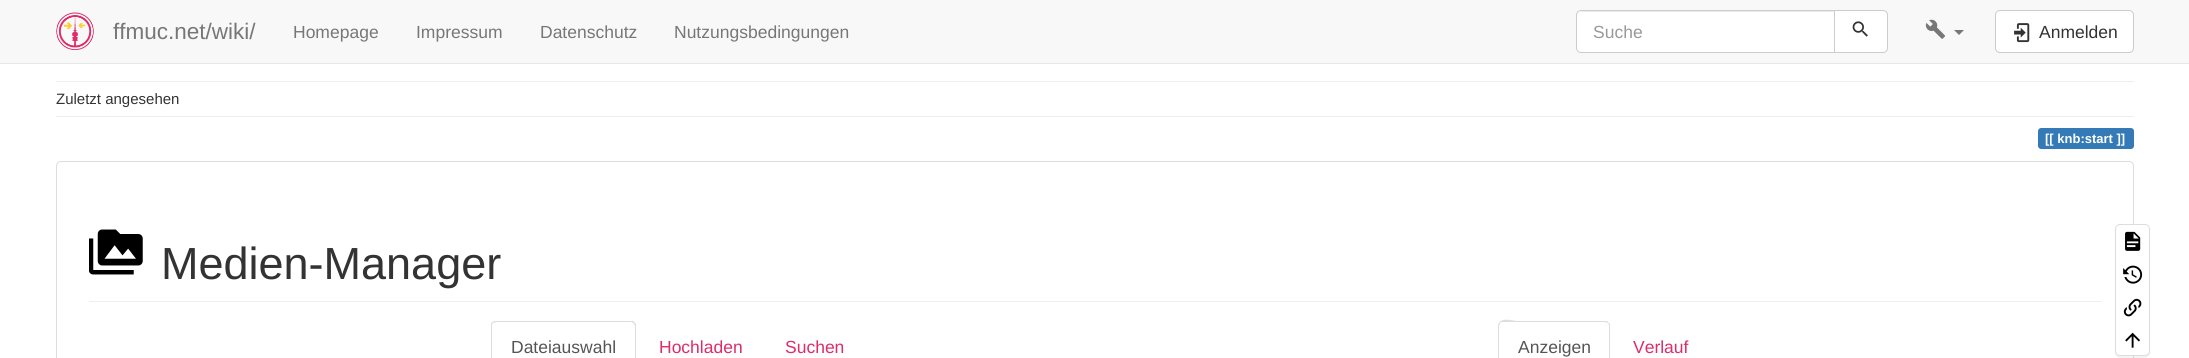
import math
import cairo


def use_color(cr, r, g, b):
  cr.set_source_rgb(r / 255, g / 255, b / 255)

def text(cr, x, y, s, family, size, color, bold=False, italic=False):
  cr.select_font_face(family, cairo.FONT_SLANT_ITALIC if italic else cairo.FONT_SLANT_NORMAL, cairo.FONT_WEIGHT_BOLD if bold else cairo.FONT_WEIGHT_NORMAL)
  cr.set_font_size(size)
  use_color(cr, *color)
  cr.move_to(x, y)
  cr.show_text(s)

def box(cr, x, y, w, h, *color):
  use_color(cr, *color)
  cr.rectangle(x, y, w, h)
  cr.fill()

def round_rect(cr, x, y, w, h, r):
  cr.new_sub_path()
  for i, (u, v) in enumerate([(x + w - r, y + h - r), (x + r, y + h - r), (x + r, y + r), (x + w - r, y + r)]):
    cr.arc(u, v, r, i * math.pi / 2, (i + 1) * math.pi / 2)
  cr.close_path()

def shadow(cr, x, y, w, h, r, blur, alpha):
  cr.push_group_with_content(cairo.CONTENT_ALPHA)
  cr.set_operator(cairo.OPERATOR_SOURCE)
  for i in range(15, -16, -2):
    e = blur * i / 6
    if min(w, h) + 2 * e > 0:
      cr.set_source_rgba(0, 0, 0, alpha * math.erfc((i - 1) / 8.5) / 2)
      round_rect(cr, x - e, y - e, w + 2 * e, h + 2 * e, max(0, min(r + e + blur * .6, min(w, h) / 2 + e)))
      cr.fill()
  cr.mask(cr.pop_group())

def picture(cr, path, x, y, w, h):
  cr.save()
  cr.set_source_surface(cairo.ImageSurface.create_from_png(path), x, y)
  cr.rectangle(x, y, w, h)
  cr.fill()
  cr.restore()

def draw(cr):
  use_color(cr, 255, 255, 255)
  cr.paint()
  box(cr, 0, 0, 2189, 63, 248, 248, 248)
  box(cr, 0, 63, 2189, 1, 231, 231, 231)
  picture(cr, "img_01.png", 56, 12, 38, 38)
  use_color(cr, 255, 255, 255)
  cr.new_path()
  cr.move_to(1581, 10)
  cr.line_to(1835, 10)
  cr.line_to(1835, 53)
  cr.line_to(1581, 53)
  cr.curve_to(1578, 53, 1576, 51, 1576, 48)
  cr.line_to(1576, 15)
  cr.curve_to(1576, 12, 1578, 10, 1581, 10)
  cr.close_path()
  cr.fill()
  use_color(cr, 236, 236, 236)
  cr.new_path()
  cr.move_to(1581, 12)
  cr.line_to(1834, 12)
  cr.line_to(1834, 11)
  cr.line_to(1582, 11)
  cr.curve_to(1580, 11, 1578, 13, 1578, 15)
  cr.line_to(1578, 16)
  cr.curve_to(1578, 14, 1579, 12, 1581, 12)
  cr.close_path()
  cr.fill()
  cr.new_path()
  cr.move_to(1581, 10.5)
  cr.line_to(1834.5, 10.5)
  cr.line_to(1834.5, 52.5)
  cr.line_to(1581, 52.5)
  cr.curve_to(1578.5, 52.5, 1576.5, 50.5, 1576.5, 48)
  cr.line_to(1576.5, 15)
  cr.curve_to(1576.5, 12.5, 1578.5, 10.5, 1581, 10.5)
  cr.close_path()
  use_color(cr, 204, 204, 204)
  cr.set_line_width(1)
  cr.stroke()
  use_color(cr, 255, 255, 255)
  cr.new_path()
  cr.move_to(1834.5, 10.5)
  cr.line_to(1883, 10.5)
  cr.curve_to(1885.5, 10.5, 1887.5, 12.5, 1887.5, 15)
  cr.line_to(1887.5, 48)
  cr.curve_to(1887.5, 50.5, 1885.5, 52.5, 1883, 52.5)
  cr.line_to(1834.5, 52.5)
  cr.close_path()
  cr.fill_preserve()
  use_color(cr, 204, 204, 204)
  cr.stroke()
  picture(cr, "img_02.png", 1852, 21, 16, 16)
  picture(cr, "img_03.png", 1925, 19, 21, 20)
  use_color(cr, 119, 119, 119)
  cr.new_path()
  cr.move_to(1954, 30)
  cr.line_to(1964, 30)
  cr.line_to(1959, 35)
  cr.close_path()
  cr.fill()
  use_color(cr, 255, 255, 255)
  round_rect(cr, 1995.5, 10.5, 138, 42, 4.5)
  cr.fill_preserve()
  use_color(cr, 204, 204, 204)
  cr.stroke()
  picture(cr, "img_04.png", 2014, 23, 16, 20)
  box(cr, 56, 81, 2078, 1, 238, 238, 238)
  box(cr, 56, 116, 2078, 1, 238, 238, 238)
  use_color(cr, 51, 122, 183)
  cr.new_path()
  cr.move_to(2041, 128)
  cr.line_to(2058, 128)
  cr.line_to(2058, 149)
  cr.line_to(2041, 149)
  cr.curve_to(2039.5, 149, 2038, 147.5, 2038, 146)
  cr.line_to(2038, 131)
  cr.curve_to(2038, 129.5, 2039.5, 128, 2041, 128)
  cr.close_path()
  cr.fill()
  box(cr, 2058, 128, 56, 21, 51, 122, 183)
  cr.new_path()
  cr.move_to(2114, 128)
  cr.line_to(2131, 128)
  cr.curve_to(2132.5, 128, 2134, 129.5, 2134, 131)
  cr.line_to(2134, 146)
  cr.curve_to(2134, 147.5, 2132.5, 149, 2131, 149)
  cr.line_to(2114, 149)
  cr.close_path()
  cr.fill()
  round_rect(cr, 56.5, 161.5, 2077, 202, 4.5)
  use_color(cr, 221, 221, 221)
  cr.stroke()
  box(cr, 89, 301, 2012, 1, 238, 238, 238)
  picture(cr, "img_05.png", 89, 229, 54, 46)
  use_color(cr, 221, 221, 221)
  cr.new_path()
  cr.move_to(496, 322)
  cr.line_to(493, 323)
  cr.line_to(492, 322)
  cr.line_to(494, 321)
  cr.line_to(633, 321)
  cr.line_to(635, 323)
  cr.line_to(634, 324)
  cr.curve_to(633, 323, 632, 322, 631, 322)
  cr.close_path()
  cr.fill()
  cr.new_path()
  cr.move_to(635, 323)
  cr.curve_to(636, 323, 636, 325, 636, 326)
  cr.line_to(636, 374)
  cr.line_to(634, 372)
  cr.line_to(635, 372)
  cr.line_to(635, 326)
  cr.line_to(634, 324)
  cr.close_path()
  cr.fill()
  cr.new_path()
  cr.move_to(491, 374)
  cr.line_to(491, 324)
  cr.line_to(492, 322)
  cr.line_to(493, 323)
  cr.curve_to(492, 324, 492, 325, 492, 326)
  cr.line_to(492, 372)
  cr.line_to(493, 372)
  cr.close_path()
  cr.fill()
  cr.new_path()
  cr.move_to(1502, 322)
  cr.curve_to(1501, 322, 1500, 323, 1500, 323)
  cr.line_to(1499, 323)
  cr.curve_to(1503, 317, 1512, 321, 1518, 321)
  cr.line_to(1607, 321)
  cr.line_to(1609, 323)
  cr.line_to(1608, 323)
  cr.line_to(1605, 322)
  cr.close_path()
  cr.fill()
  cr.new_path()
  cr.move_to(1610, 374)
  cr.line_to(1610, 326)
  cr.curve_to(1610, 325, 1610, 323, 1609, 323)
  cr.line_to(1608, 323)
  cr.curve_to(1609, 324, 1609, 325, 1609, 326)
  cr.line_to(1609, 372)
  cr.line_to(1608, 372)
  cr.close_path()
  cr.fill()
  cr.new_path()
  cr.move_to(1498, 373)
  cr.line_to(1498, 326)
  cr.curve_to(1498, 325, 1498, 324, 1499, 323)
  cr.line_to(1500, 323)
  cr.line_to(1499, 326)
  cr.line_to(1499, 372)
  cr.close_path()
  cr.fill()
  use_color(cr, 0, 0, 0)
  shadow(cr, 2115, 225, 35, 133, 5, 0.5, 0.05)
  use_color(cr, 255, 255, 255)
  round_rect(cr, 2115.5, 224.5, 34, 131, 4.5)
  cr.fill_preserve()
  use_color(cr, 221, 221, 221)
  cr.stroke()
  picture(cr, "img_06.png", 2125, 231, 16, 20)
  picture(cr, "img_07.png", 2123, 265, 20, 19)
  picture(cr, "img_08.png", 2123, 298, 19, 19)
  picture(cr, "img_09.png", 2125, 332, 15, 16)
  text(cr, 113, 39, "ffmuc.net/wiki/", "Liberation Sans", 22.5, (119, 119, 119))
  text(cr, 293, 38, "Homepage", "Liberation Sans", 17.5, (119, 119, 119))
  text(cr, 416, 38, "Impressum", "Liberation Sans", 17.5, (119, 119, 119))
  text(cr, 540, 38, "Datenschutz", "Liberation Sans", 17.5, (119, 119, 119))
  text(cr, 674, 38, "Nutzungsbedingungen", "Liberation Sans", 17.5, (119, 119, 119))
  text(cr, 1593, 38, "Suche", "Liberation Sans", 17.5, (153, 153, 153))
  text(cr, 2039, 38, "Anmelden", "Liberation Sans", 17.5, (51, 51, 51))
  text(cr, 56, 104, "Zuletzt angesehen", "Liberation Sans", 15, (51, 51, 51))
  text(cr, 2045, 143, "[[ knb:start ]]", "Liberation Sans", 13, (255, 255, 255), bold=True)
  text(cr, 161, 279, "Medien-Manager", "Liberation Sans", 45, (51, 51, 51))
  text(cr, 511, 353, "Dateiauswahl", "Liberation Sans", 17.5, (85, 85, 85))
  text(cr, 659, 353, "Hochladen", "Liberation Sans", 17.5, (222, 44, 104))
  text(cr, 785, 353, "Suchen", "Liberation Sans", 17.5, (222, 44, 104))
  text(cr, 1518, 353, "Anzeigen", "Liberation Sans", 17.5, (85, 85, 85))
  text(cr, 1633, 353, "Verlauf", "Liberation Sans", 17.5, (222, 44, 104))


surface = cairo.ImageSurface(cairo.FORMAT_RGB24, 2189, 358)
cr = cairo.Context(surface)
options = cairo.FontOptions()
options.set_hint_metrics(cairo.HINT_METRICS_OFF)
options.set_hint_style(cairo.HINT_STYLE_NONE)
cr.set_font_options(options)
cr.set_miter_limit(4)
draw(cr)
surface.write_to_png("out.png")
